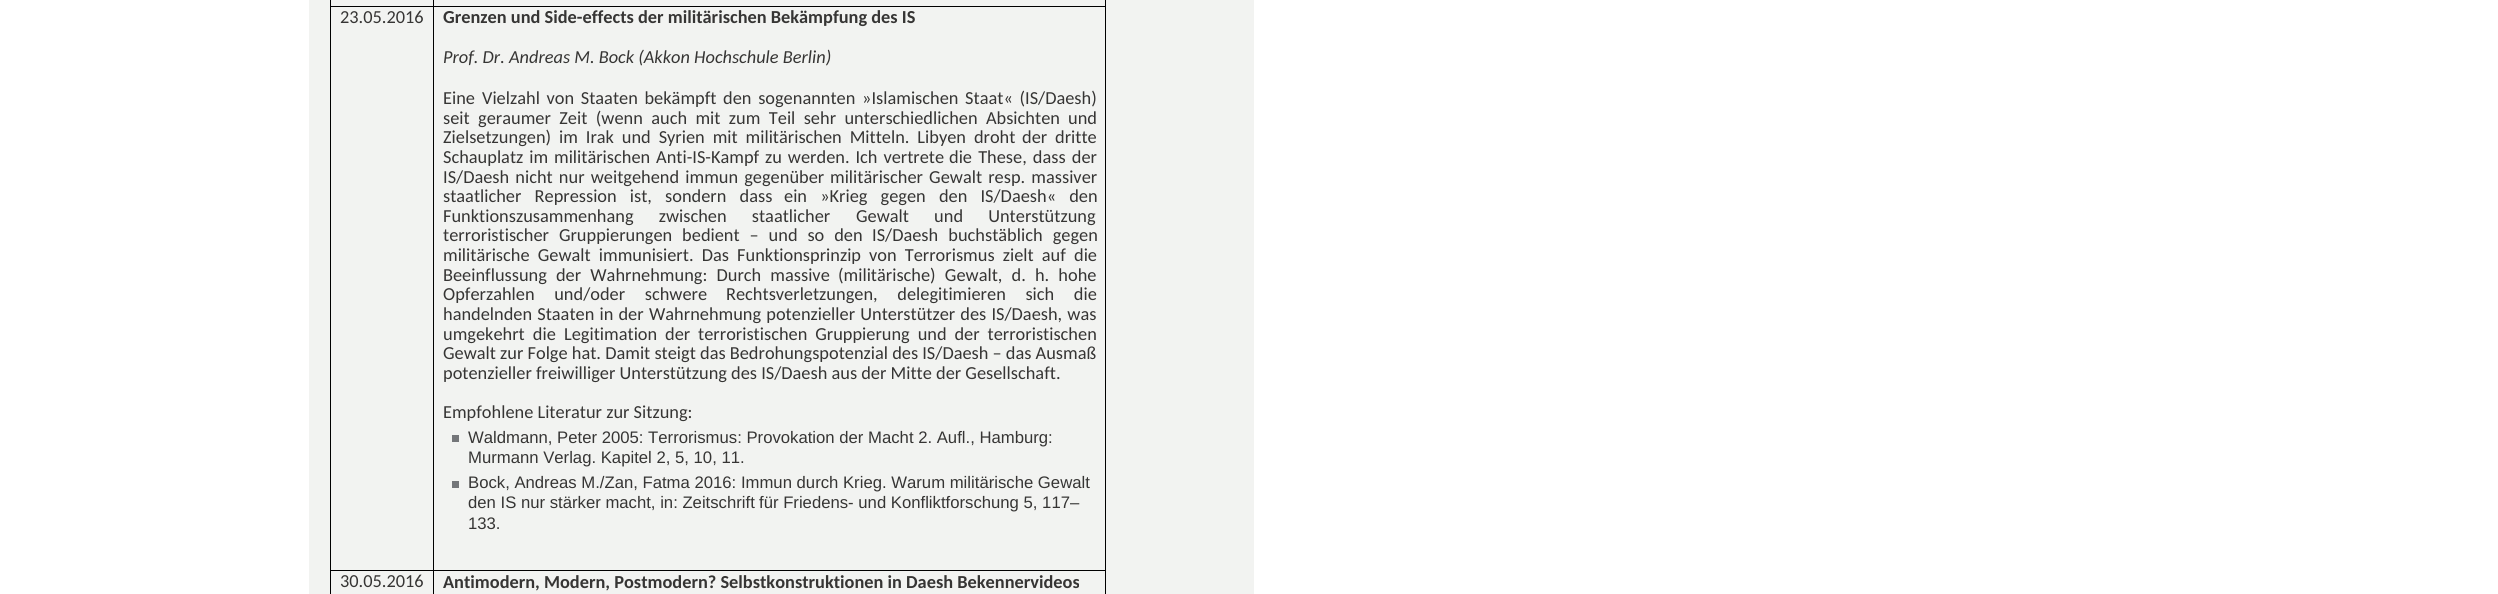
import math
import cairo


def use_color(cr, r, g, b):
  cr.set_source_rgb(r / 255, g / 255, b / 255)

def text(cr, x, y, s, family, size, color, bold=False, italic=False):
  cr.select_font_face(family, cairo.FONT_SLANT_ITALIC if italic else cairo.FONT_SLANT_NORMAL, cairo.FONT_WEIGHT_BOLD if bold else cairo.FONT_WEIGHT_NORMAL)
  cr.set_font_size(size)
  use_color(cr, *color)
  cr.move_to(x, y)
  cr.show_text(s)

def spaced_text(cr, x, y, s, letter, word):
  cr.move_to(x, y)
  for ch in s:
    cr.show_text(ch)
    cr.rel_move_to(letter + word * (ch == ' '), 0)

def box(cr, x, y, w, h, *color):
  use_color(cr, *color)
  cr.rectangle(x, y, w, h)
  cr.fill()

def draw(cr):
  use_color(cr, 255, 255, 255)
  cr.paint()
  box(cr, 309, 0, 945, 594, 242, 243, 241)
  box(cr, 433, 570, 1, 24, 0, 0, 0)
  box(cr, 1105, 0, 1, 594, 0, 0, 0)
  box(cr, 433, 570, 673, 1, 0, 0, 0)
  box(cr, 433, 6, 1, 565, 0, 0, 0)
  box(cr, 433, 6, 673, 1, 0, 0, 0)
  box(cr, 433, 0, 1, 8, 0, 0, 0)
  box(cr, 330, 570, 1, 24, 0, 0, 0)
  box(cr, 330, 570, 104, 1, 0, 0, 0)
  box(cr, 330, 6, 1, 565, 0, 0, 0)
  box(cr, 330, 6, 104, 1, 0, 0, 0)
  box(cr, 330, 0, 1, 8, 0, 0, 0)
  box(cr, 452, 435, 7, 7, 116, 118, 121)
  box(cr, 452, 481, 7, 7, 116, 118, 121)
  text(cr, 340, 23, "23.05.2016", "Carlito", 18.35, (54, 53, 52))
  text(cr, 443, 23, "Grenzen und Side-effects der militärischen Bekämpfung des IS", "Carlito", 18.35, (54, 53, 52), bold=True)
  text(cr, 443, 63, "Prof. Dr. Andreas M. Bock (Akkon Hochschule Berlin)", "Carlito", 18.35, (54, 53, 52), italic=True)
  text(cr, 443, 104, "Eine", "Carlito", 18.35, (54, 53, 52))
  spaced_text(cr, 482, 104, "Vielzahl von Staaten bekämpft den sogenannten »Islamischen Staat« (IS/Daesh)", 0, 2.5)
  spaced_text(cr, 443, 124, "seit geraumer Zeit (wenn auch mit zum Teil sehr unterschiedlichen Absichten", 0, 4.25)
  text(cr, 1068, 124, "und", "Carlito", 18.35, (54, 53, 52))
  spaced_text(cr, 443, 143, "Zielsetzungen) im Irak und Syrien mit militärischen Mitteln. Libyen droht", 0, 3.75)
  spaced_text(cr, 1022, 143, "der dritte", 0, 3.75)
  spaced_text(cr, 443, 163, "Schauplatz im militärischen Anti-IS-Kampf zu werden. Ich vertrete", 0, 1.75)
  spaced_text(cr, 949, 163, "die These, dass der", 0, 2)
  spaced_text(cr, 443, 183, "IS/Daesh nicht nur weitgehend immun gegenüber", 0, 2)
  spaced_text(cr, 830, 183, "militärischer Gewalt resp. massiver", 0, 2)
  spaced_text(cr, 443, 202, "staatlicher Repression ist, sondern dass", 0, 9)
  spaced_text(cr, 784, 202, "ein »Krieg gegen den IS/Daesh« den", 0, 9)
  spaced_text(cr, 443, 222, "Funktionszusammenhang zwischen staatlicher", 0, 21)
  spaced_text(cr, 856, 222, "Gewalt und Unterstützung", 0, 21)
  spaced_text(cr, 443, 241, "terroristischer Gruppierungen bedient – und so den", 0, 5.75)
  spaced_text(cr, 872, 241, "IS/Daesh buchstäblich gegen", 0, 6)
  spaced_text(cr, 443, 261, "militärische Gewalt immunisiert. Das Funktionsprinzip", 0, 4)
  spaced_text(cr, 869, 261, "von Terrorismus zielt auf die", 0, 4)
  spaced_text(cr, 443, 281, "Beeinflussung der Wahrnehmung: Durch massive", 0, 5)
  spaced_text(cr, 838, 281, "(militärische) Gewalt, d. h. hohe", 0, 5)
  spaced_text(cr, 443, 300, "Opferzahlen und/oder schwere", 0, 15.5)
  spaced_text(cr, 726, 300, "Rechtsverletzungen, delegitimieren sich die", 0, 15.5)
  spaced_text(cr, 443, 320, "handelnden Staaten in der", 0, 1)
  spaced_text(cr, 649, 320, "Wahrnehmung potenzieller Unterstützer des IS/Daesh, was", 0, 1)
  spaced_text(cr, 443, 340, "umgekehrt die Legitimation", 0, 4)
  spaced_text(cr, 665, 340, "der terroristischen Gruppierung und der terroristischen", 0, 3.75)
  text(cr, 443, 359, "Gewalt zur Folge hat. Damit steigt das Bedrohungspotenzial des IS/Daesh – das Ausmaß", "Carlito", 18.35, (54, 53, 52))
  text(cr, 443, 379, "potenzieller freiwilliger Unterstützung des IS/Daesh aus der Mitte der Gesellschaft.", "Carlito", 18.35, (54, 53, 52))
  text(cr, 443, 418, "Empfohlene Literatur zur Sitzung:", "Carlito", 18.35, (54, 53, 52))
  text(cr, 468, 443, "Waldmann, Peter 2005: Terrorismus: Provokation der Macht 2. Aufl., Hamburg:", "Liberation Sans", 16.7, (54, 53, 52))
  text(cr, 468, 463, "Murmann Verlag. Kapitel 2, 5, 10, 11.", "Liberation Sans", 16.7, (54, 53, 52))
  text(cr, 468, 488, "Bock, Andreas M./Zan, Fatma 2016: Immun durch Krieg. Warum militärische Gewalt", "Liberation Sans", 16.7, (54, 53, 52))
  text(cr, 468, 508, "den IS nur stärker macht, in: Zeitschrift", "Liberation Sans", 16.7, (54, 53, 52))
  text(cr, 759, 508, "für Friedens- und Konfliktforschung 5, 117–", "Liberation Sans", 16.7, (54, 53, 52))
  text(cr, 468, 529, "133.", "Liberation Sans", 16.7, (54, 53, 52))
  text(cr, 340, 587, "30.05.2016", "Carlito", 18.35, (54, 53, 52))
  text(cr, 443, 588, "Antimodern, Modern, Postmodern? Selbstkonstruktionen in Daesh Bekennervideos", "Carlito", 18.35, (54, 53, 52), bold=True)


surface = cairo.ImageSurface(cairo.FORMAT_RGB24, 2498, 594)
cr = cairo.Context(surface)
options = cairo.FontOptions()
options.set_hint_metrics(cairo.HINT_METRICS_OFF)
options.set_hint_style(cairo.HINT_STYLE_NONE)
cr.set_font_options(options)
cr.set_miter_limit(4)
draw(cr)
surface.write_to_png("out.png")
